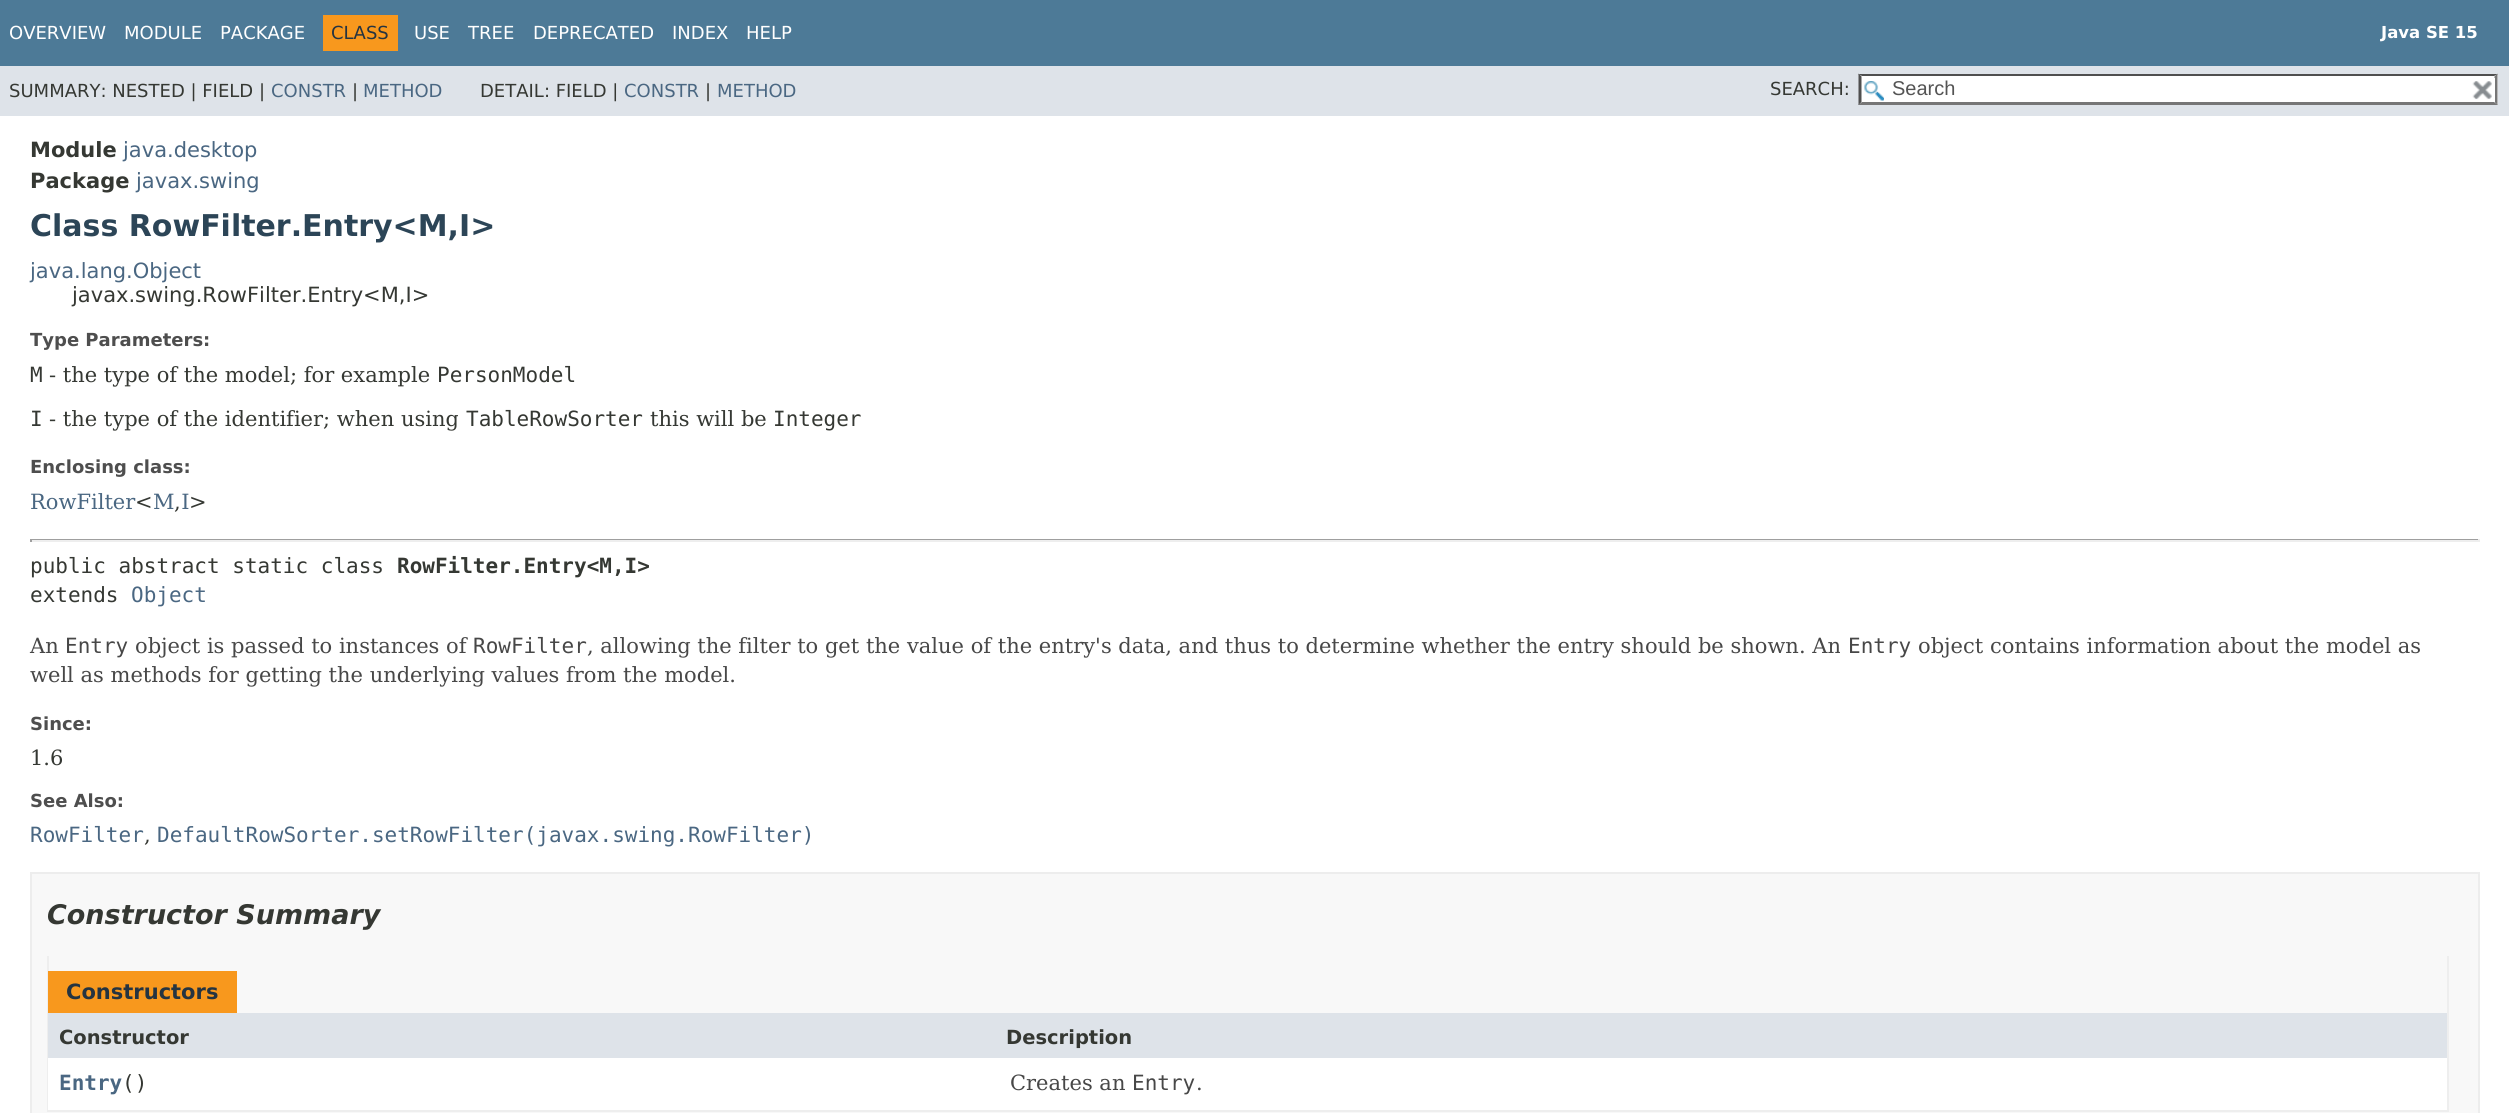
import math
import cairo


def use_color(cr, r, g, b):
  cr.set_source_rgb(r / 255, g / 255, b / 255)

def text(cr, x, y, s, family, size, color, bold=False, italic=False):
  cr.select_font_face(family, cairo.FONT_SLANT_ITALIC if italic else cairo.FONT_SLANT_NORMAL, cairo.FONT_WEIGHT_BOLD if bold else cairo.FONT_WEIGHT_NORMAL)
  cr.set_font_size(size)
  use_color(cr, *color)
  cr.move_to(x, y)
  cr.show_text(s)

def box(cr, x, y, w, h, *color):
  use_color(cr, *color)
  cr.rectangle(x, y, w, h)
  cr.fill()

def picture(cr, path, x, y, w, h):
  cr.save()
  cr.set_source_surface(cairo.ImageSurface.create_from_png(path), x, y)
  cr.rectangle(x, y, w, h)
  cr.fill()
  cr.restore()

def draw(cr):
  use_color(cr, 255, 255, 255)
  cr.paint()
  box(cr, 0, 0, 2509, 66, 77, 122, 151)
  box(cr, 323, 15, 75, 36, 248, 152, 29)
  box(cr, 0, 66, 2509, 50, 222, 227, 233)
  box(cr, 1859, 74, 639, 31, 255, 255, 255)
  picture(cr, "img_01.png", 1864, 81, 20, 20)
  use_color(cr, 79, 79, 79)
  cr.new_path()
  cr.move_to(1858, 74)
  cr.line_to(2498, 74)
  cr.line_to(2494, 76)
  cr.line_to(1862, 76)
  cr.close_path()
  cr.fill()
  use_color(cr, 118, 118, 118)
  cr.new_path()
  cr.move_to(2497.5, 73.5)
  cr.line_to(2497.5, 105)
  cr.line_to(2494.5, 102)
  cr.line_to(2494.5, 76.5)
  cr.close_path()
  cr.fill()
  cr.new_path()
  cr.move_to(2498, 105)
  cr.line_to(1858, 105)
  cr.line_to(1862, 102)
  cr.line_to(2494, 102)
  cr.close_path()
  cr.fill()
  use_color(cr, 79, 79, 79)
  cr.new_path()
  cr.move_to(1858.5, 105)
  cr.line_to(1858.5, 73.5)
  cr.line_to(1861.5, 76.5)
  cr.line_to(1861.5, 102)
  cr.close_path()
  cr.fill()
  box(cr, 2494, 78, 1, 24, 255, 255, 255)
  picture(cr, "img_02.png", 2472, 81, 20, 19)
  box(cr, 30, 539, 2450, 1, 159, 159, 159)
  box(cr, 2478, 539, 2, 3, 238, 238, 238)
  box(cr, 30, 540, 2450, 2, 238, 238, 238)
  box(cr, 30, 539, 2, 3, 159, 159, 159)
  use_color(cr, 248, 248, 248)
  cr.rectangle(31, 873, 2448, 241)
  cr.fill_preserve()
  use_color(cr, 237, 237, 237)
  cr.stroke()
  box(cr, 2447, 956, 2, 156, 238, 238, 238)
  box(cr, 47, 1110, 2401, 2, 238, 238, 238)
  box(cr, 47, 956, 2, 156, 238, 238, 238)
  box(cr, 48, 971, 189, 42, 248, 152, 29)
  box(cr, 48, 1013, 2399, 45, 222, 227, 233)
  box(cr, 48, 1058, 2399, 52, 255, 255, 255)
  text(cr, 9, 39, "OVERVIEW", "DejaVu Sans", 18, (255, 255, 255))
  text(cr, 124, 39, "MODULE", "DejaVu Sans", 18, (255, 255, 255))
  text(cr, 220, 39, "PACKAGE", "DejaVu Sans", 18, (255, 255, 255))
  text(cr, 331, 39, "CLASS", "DejaVu Sans", 18, (37, 52, 65))
  text(cr, 414, 39, "USE", "DejaVu Sans", 18, (255, 255, 255))
  text(cr, 468, 39, "TREE", "DejaVu Sans", 18, (255, 255, 255))
  text(cr, 533, 39, "DEPRECATED", "DejaVu Sans", 18, (255, 255, 255))
  text(cr, 672, 39, "INDEX", "DejaVu Sans", 18, (255, 255, 255))
  text(cr, 746, 39, "HELP", "DejaVu Sans", 18, (255, 255, 255))
  text(cr, 2381, 38, "Java SE 15", "DejaVu Sans", 16.5, (255, 255, 255), bold=True)
  text(cr, 9, 97, "SUMMARY: NESTED | FIELD |", "DejaVu Sans", 18, (53, 56, 51))
  text(cr, 271, 97, "CONSTR", "DejaVu Sans", 18, (74, 103, 130))
  text(cr, 352, 97, "|", "DejaVu Sans", 18, (53, 56, 51))
  text(cr, 363, 97, "METHOD", "DejaVu Sans", 18, (74, 103, 130))
  text(cr, 480, 97, "DETAIL: FIELD |", "DejaVu Sans", 18, (53, 56, 51))
  text(cr, 624, 97, "CONSTR", "DejaVu Sans", 18, (74, 103, 130))
  text(cr, 705, 97, "|", "DejaVu Sans", 18, (53, 56, 51))
  text(cr, 717, 97, "METHOD", "DejaVu Sans", 18, (74, 103, 130))
  text(cr, 1770, 95, "SEARCH:", "DejaVu Sans", 18, (53, 56, 51))
  text(cr, 1892, 95, "Search", "Liberation Sans", 20, (84, 84, 84))
  text(cr, 30, 157, "Module", "DejaVu Sans", 21, (53, 56, 51), bold=True)
  text(cr, 123, 157, "java.desktop", "DejaVu Sans", 21, (74, 103, 130))
  text(cr, 30, 188, "Package", "DejaVu Sans", 21, (53, 56, 51), bold=True)
  text(cr, 136, 188, "javax.swing", "DejaVu Sans", 21, (74, 103, 130))
  text(cr, 30, 236, "Class RowFilter.Entry<M,I>", "DejaVu Sans", 30, (44, 69, 87), bold=True)
  text(cr, 30, 278, "java.lang.Object", "DejaVu Sans", 21, (74, 103, 130))
  text(cr, 72, 302, "javax.swing.RowFilter.Entry<M,I>", "DejaVu Sans", 21, (53, 56, 51))
  text(cr, 30, 346, "Type Parameters:", "DejaVu Sans", 18, (78, 78, 78), bold=True)
  text(cr, 30, 382, "M", "DejaVu Sans Mono", 21, (53, 56, 51))
  text(cr, 49, 382, "- the type of the model; for example", "DejaVu Serif", 21, (53, 56, 51))
  text(cr, 437, 382, "PersonModel", "DejaVu Sans Mono", 21, (53, 56, 51))
  text(cr, 30, 426, "I", "DejaVu Sans Mono", 21, (53, 56, 51))
  text(cr, 49, 426, "- the type of the identifier; when using", "DejaVu Serif", 21, (53, 56, 51))
  text(cr, 466, 426, "TableRowSorter", "DejaVu Sans Mono", 21, (53, 56, 51))
  text(cr, 650, 426, "this will be", "DejaVu Serif", 21, (53, 56, 51))
  text(cr, 773, 426, "Integer", "DejaVu Sans Mono", 21, (53, 56, 51))
  text(cr, 30, 473, "Enclosing class:", "DejaVu Sans", 18, (78, 78, 78), bold=True)
  text(cr, 30, 509, "RowFilter", "DejaVu Serif", 21, (74, 103, 130))
  text(cr, 135, 509, "<", "DejaVu Serif", 21, (53, 56, 51))
  text(cr, 153, 509, "M I", "DejaVu Serif", 21, (74, 103, 130))
  text(cr, 189, 509, ">", "DejaVu Serif", 21, (53, 56, 51))
  text(cr, 174, 509, ",", "DejaVu Serif", 21, (53, 56, 51))
  text(cr, 30, 573, "public abstract static class", "DejaVu Sans Mono", 21, (53, 56, 51))
  text(cr, 397, 573, "RowFilter.Entry<M,I>", "DejaVu Sans Mono", 21, (53, 56, 51), bold=True)
  text(cr, 30, 602, "extends", "DejaVu Sans Mono", 21, (53, 56, 51))
  text(cr, 131, 602, "Object", "DejaVu Sans Mono", 21, (74, 103, 130))
  text(cr, 30, 653, "An", "DejaVu Serif", 21, (71, 71, 71))
  text(cr, 65, 653, "Entry", "DejaVu Sans Mono", 21, (71, 71, 71))
  text(cr, 135, 653, "object is passed to instances of", "DejaVu Serif", 21, (71, 71, 71))
  text(cr, 473, 653, "RowFilter", "DejaVu Sans Mono", 21, (71, 71, 71))
  text(cr, 587, 653, ", allowing the filter to get the value of the entry's data, and thus to determine whether the entry should be shown. An", "DejaVu Serif", 21, (71, 71, 71))
  text(cr, 1848, 653, "Entry", "DejaVu Sans Mono", 21, (71, 71, 71))
  text(cr, 1918, 653, "object contains information about the model as", "DejaVu Serif", 21, (71, 71, 71))
  text(cr, 30, 682, "well as methods for getting the underlying values from the model.", "DejaVu Serif", 21, (71, 71, 71))
  text(cr, 30, 730, "Since:", "DejaVu Sans", 18, (78, 78, 78), bold=True)
  text(cr, 30, 765, "1.6", "DejaVu Serif", 21, (53, 56, 51))
  text(cr, 30, 807, "See Also:", "DejaVu Sans", 18, (78, 78, 78), bold=True)
  text(cr, 30, 842, "RowFilter", "DejaVu Sans Mono", 21, (74, 103, 130))
  text(cr, 144, 842, ",", "DejaVu Serif", 21, (53, 56, 51))
  text(cr, 157, 842, "DefaultRowSorter.setRowFilter(javax.swing.RowFilter)", "DejaVu Sans Mono", 21, (74, 103, 130))
  text(cr, 47, 924, "Constructor Summary", "DejaVu Sans", 27, (53, 56, 51), bold=True, italic=True)
  text(cr, 66, 999, "Constructors", "DejaVu Sans", 21, (37, 52, 65), bold=True)
  text(cr, 59, 1044, "Constructor", "DejaVu Sans", 19.5, (53, 56, 51), bold=True)
  text(cr, 1006, 1044, "Description", "DejaVu Sans", 19.5, (53, 56, 51), bold=True)
  text(cr, 59, 1090, "Entry", "DejaVu Sans Mono", 21, (74, 103, 130), bold=True)
  text(cr, 122, 1090, "()", "DejaVu Sans Mono", 21, (53, 56, 51))
  text(cr, 1010, 1090, "Creates an", "DejaVu Serif", 21, (71, 71, 71))
  text(cr, 1132, 1090, "Entry", "DejaVu Sans Mono", 21, (71, 71, 71))
  text(cr, 1196, 1090, ".", "DejaVu Serif", 21, (71, 71, 71))


surface = cairo.ImageSurface(cairo.FORMAT_RGB24, 2509, 1113)
cr = cairo.Context(surface)
options = cairo.FontOptions()
options.set_hint_metrics(cairo.HINT_METRICS_OFF)
options.set_hint_style(cairo.HINT_STYLE_NONE)
cr.set_font_options(options)
cr.set_miter_limit(4)
draw(cr)
surface.write_to_png("out.png")
